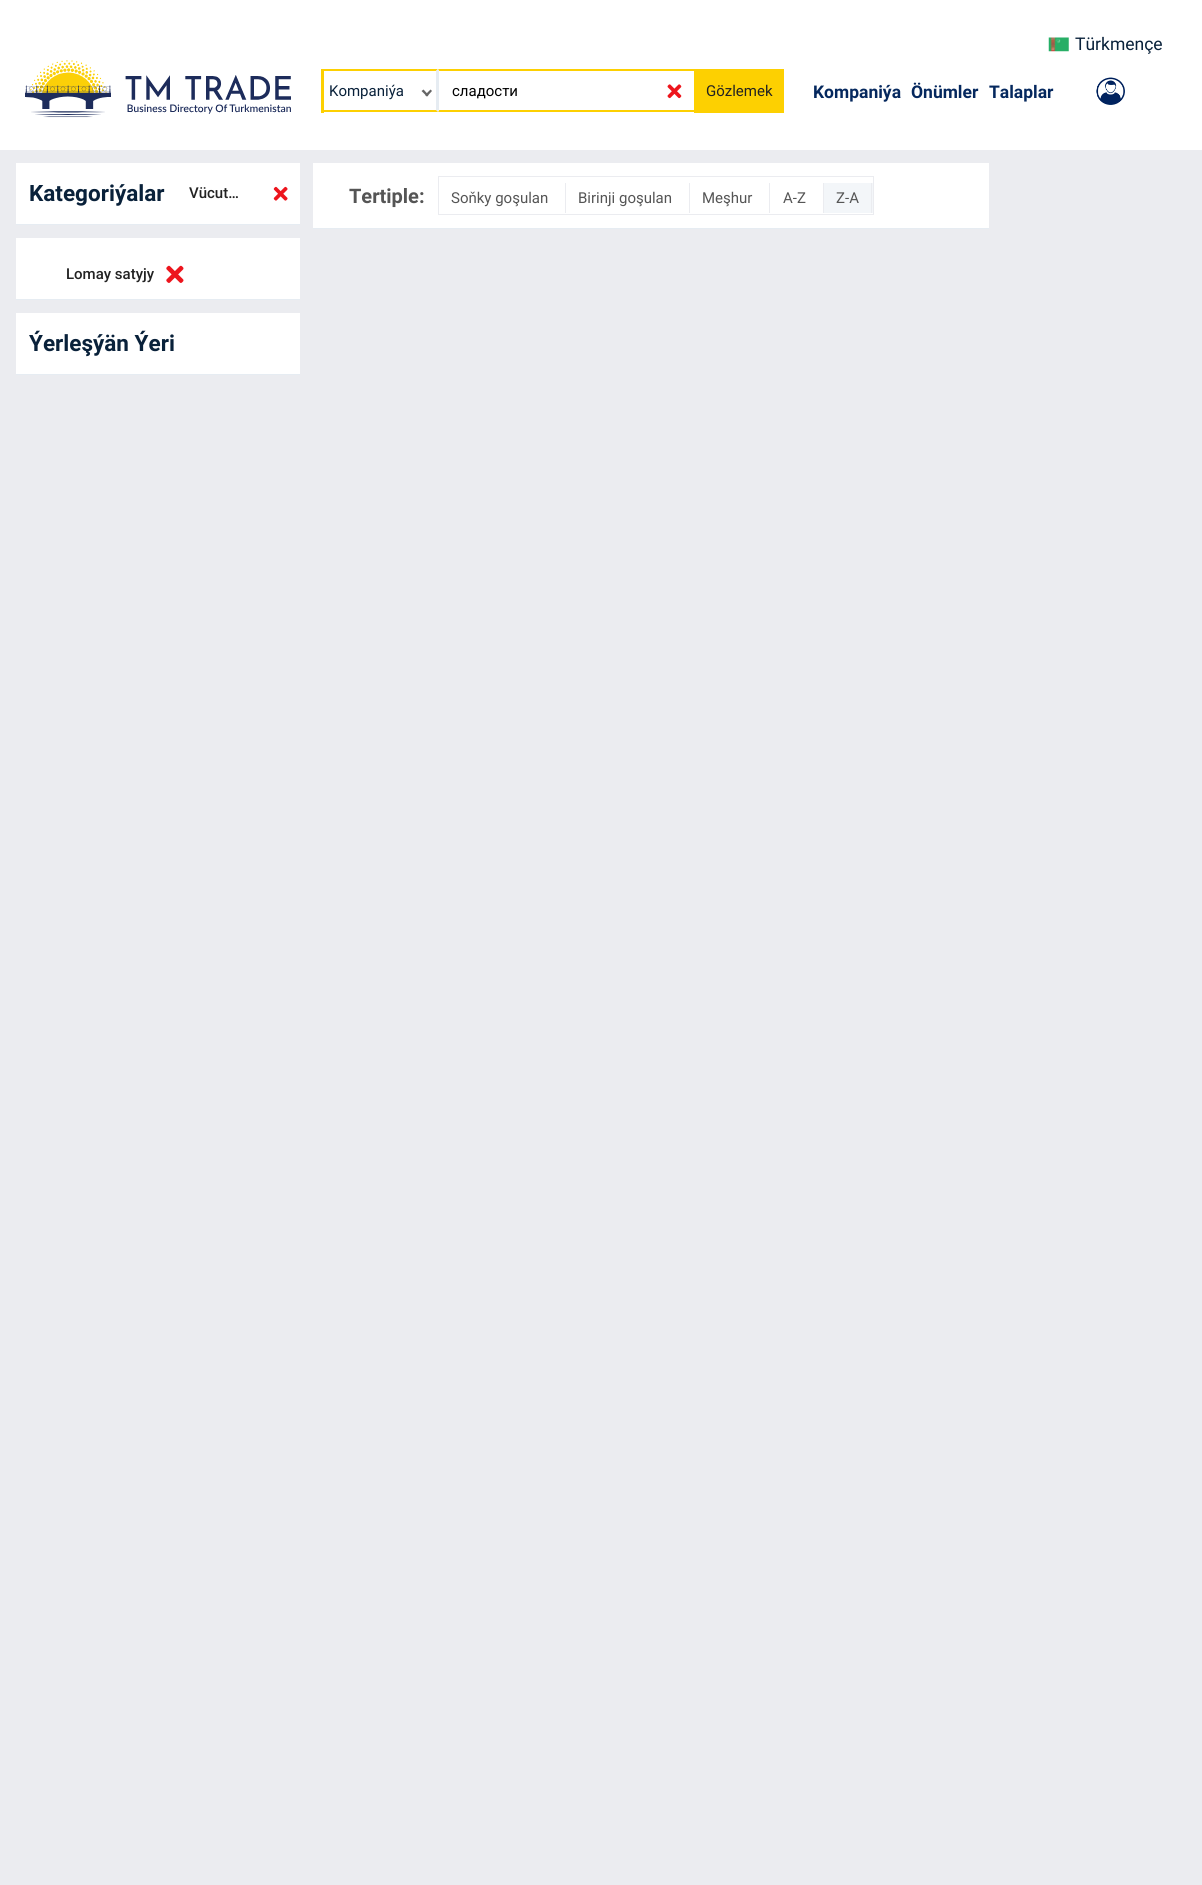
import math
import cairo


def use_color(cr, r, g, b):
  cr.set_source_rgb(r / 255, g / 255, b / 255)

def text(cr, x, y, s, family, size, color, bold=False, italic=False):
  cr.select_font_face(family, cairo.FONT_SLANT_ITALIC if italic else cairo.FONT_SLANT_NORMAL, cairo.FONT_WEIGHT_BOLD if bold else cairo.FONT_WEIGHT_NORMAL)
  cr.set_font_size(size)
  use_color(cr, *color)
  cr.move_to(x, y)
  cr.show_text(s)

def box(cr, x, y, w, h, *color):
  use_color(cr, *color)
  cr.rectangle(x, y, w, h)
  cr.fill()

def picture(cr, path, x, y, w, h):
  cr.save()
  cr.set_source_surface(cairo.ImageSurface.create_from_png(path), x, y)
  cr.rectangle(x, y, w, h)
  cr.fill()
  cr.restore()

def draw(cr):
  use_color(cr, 235, 236, 240)
  cr.paint()
  box(cr, 0, 0, 1202, 150, 255, 255, 255)
  picture(cr, "img_01.png", 1048, 37, 21, 15)
  picture(cr, "img_02.png", 25, 60, 266, 58)
  use_color(cr, 253, 208, 1)
  cr.new_path()
  cr.move_to(321, 69)
  cr.line_to(438, 69)
  cr.line_to(436, 71)
  cr.line_to(324, 71)
  cr.close_path()
  cr.fill()
  use_color(cr, 230, 236, 242)
  cr.new_path()
  cr.move_to(438, 69)
  cr.line_to(438, 112)
  cr.line_to(436, 110)
  cr.line_to(436, 71)
  cr.close_path()
  cr.fill()
  use_color(cr, 253, 208, 1)
  cr.new_path()
  cr.move_to(438, 112)
  cr.line_to(321, 112)
  cr.line_to(324, 110)
  cr.line_to(436, 110)
  cr.close_path()
  cr.fill()
  box(cr, 321, 69, 3, 44, 253, 208, 1)
  use_color(cr, 102, 102, 102)
  cr.new_path()
  cr.move_to(430.5, 89.5)
  cr.line_to(432, 91)
  cr.line_to(427, 96.5)
  cr.line_to(425, 95)
  cr.close_path()
  cr.fill()
  cr.new_path()
  cr.move_to(423.5, 89.5)
  cr.line_to(428.5, 95)
  cr.line_to(427, 96.5)
  cr.line_to(421.5, 91)
  cr.close_path()
  cr.fill()
  use_color(cr, 253, 208, 1)
  cr.new_path()
  cr.move_to(438, 69)
  cr.line_to(696, 69)
  cr.line_to(694, 71)
  cr.line_to(439, 71)
  cr.close_path()
  cr.fill()
  box(cr, 694, 69, 3, 44, 253, 208, 1)
  cr.new_path()
  cr.move_to(696, 112)
  cr.line_to(438, 112)
  cr.line_to(439, 110)
  cr.line_to(694, 110)
  cr.close_path()
  cr.fill()
  use_color(cr, 230, 236, 242)
  cr.new_path()
  cr.move_to(438, 112)
  cr.line_to(438, 69)
  cr.line_to(439, 71)
  cr.line_to(439, 110)
  cr.close_path()
  cr.fill()
  picture(cr, "img_03.png", 667, 84, 15, 15)
  box(cr, 697, 69, 87, 44, 253, 208, 1)
  picture(cr, "img_04.png", 1096, 77, 29, 28)
  box(cr, 16, 163, 284, 61, 255, 255, 255)
  box(cr, 16, 224, 284, 1, 230, 236, 242)
  picture(cr, "img_05.png", 273, 186, 15, 15)
  box(cr, 16, 238, 284, 61, 255, 255, 255)
  box(cr, 16, 299, 284, 1, 230, 236, 242)
  picture(cr, "img_06.png", 166, 265, 18, 18)
  box(cr, 16, 313, 284, 61, 255, 255, 255)
  box(cr, 16, 374, 284, 1, 230, 236, 242)
  box(cr, 313, 163, 676, 65, 255, 255, 255)
  box(cr, 313, 228, 676, 1, 230, 236, 242)
  cr.rectangle(438.5, 176.5, 435, 38)
  use_color(cr, 235, 236, 240)
  cr.set_line_width(1)
  cr.stroke()
  box(cr, 565, 183, 1, 30, 235, 236, 240)
  box(cr, 689, 183, 1, 30, 235, 236, 240)
  box(cr, 769, 183, 1, 30, 235, 236, 240)
  box(cr, 823, 183, 1, 30, 235, 236, 240)
  box(cr, 824, 183, 49, 30, 243, 246, 249)
  box(cr, 871, 183, 1, 30, 235, 236, 240)
  text(cr, 1075, 50, "Türkmençe", "Roboto", 17.5, (9, 33, 58))
  text(cr, 329, 96, "Kompaniýa", "Roboto", 15, (9, 33, 58))
  text(cr, 452, 96, "сладости", "Roboto", 15, (0, 0, 0))
  text(cr, 706, 96, "Gözlemek", "Roboto", 15, (34, 34, 34))
  text(cr, 813, 98, "Kompaniýa", "Roboto", 17.5, (5, 40, 94), bold=True)
  text(cr, 911, 98, "Önümler", "Roboto", 17.5, (5, 40, 94), bold=True)
  text(cr, 989, 98, "Talaplar", "Roboto", 17.5, (5, 40, 94), bold=True)
  text(cr, 29, 201, "Kategoriýalar", "Roboto", 22.5, (9, 33, 58), bold=True)
  text(cr, 189, 198, "Vücut…", "Roboto Medium", 15, (34, 34, 34))
  text(cr, 66, 279, "Lomay satyjy", "Roboto Medium", 15, (34, 34, 34))
  text(cr, 29, 351, "Ýerleşýän Ýeri", "Roboto", 22.5, (9, 33, 58), bold=True)
  text(cr, 349, 203, "Tertiple:", "Roboto", 20, (85, 85, 85), bold=True)
  text(cr, 451, 203, "Soňky goşulan", "Roboto", 15, (85, 85, 85))
  text(cr, 578, 203, "Birinji goşulan", "Roboto", 15, (85, 85, 85))
  text(cr, 702, 203, "Meşhur", "Roboto", 15, (85, 85, 85))
  text(cr, 783, 203, "A-Z", "Roboto", 15, (85, 85, 85))
  text(cr, 836, 203, "Z-A", "Roboto", 15, (85, 85, 85))


surface = cairo.ImageSurface(cairo.FORMAT_RGB24, 1202, 1885)
cr = cairo.Context(surface)
options = cairo.FontOptions()
options.set_hint_metrics(cairo.HINT_METRICS_OFF)
options.set_hint_style(cairo.HINT_STYLE_NONE)
cr.set_font_options(options)
cr.set_miter_limit(4)
draw(cr)
surface.write_to_png("out.png")
